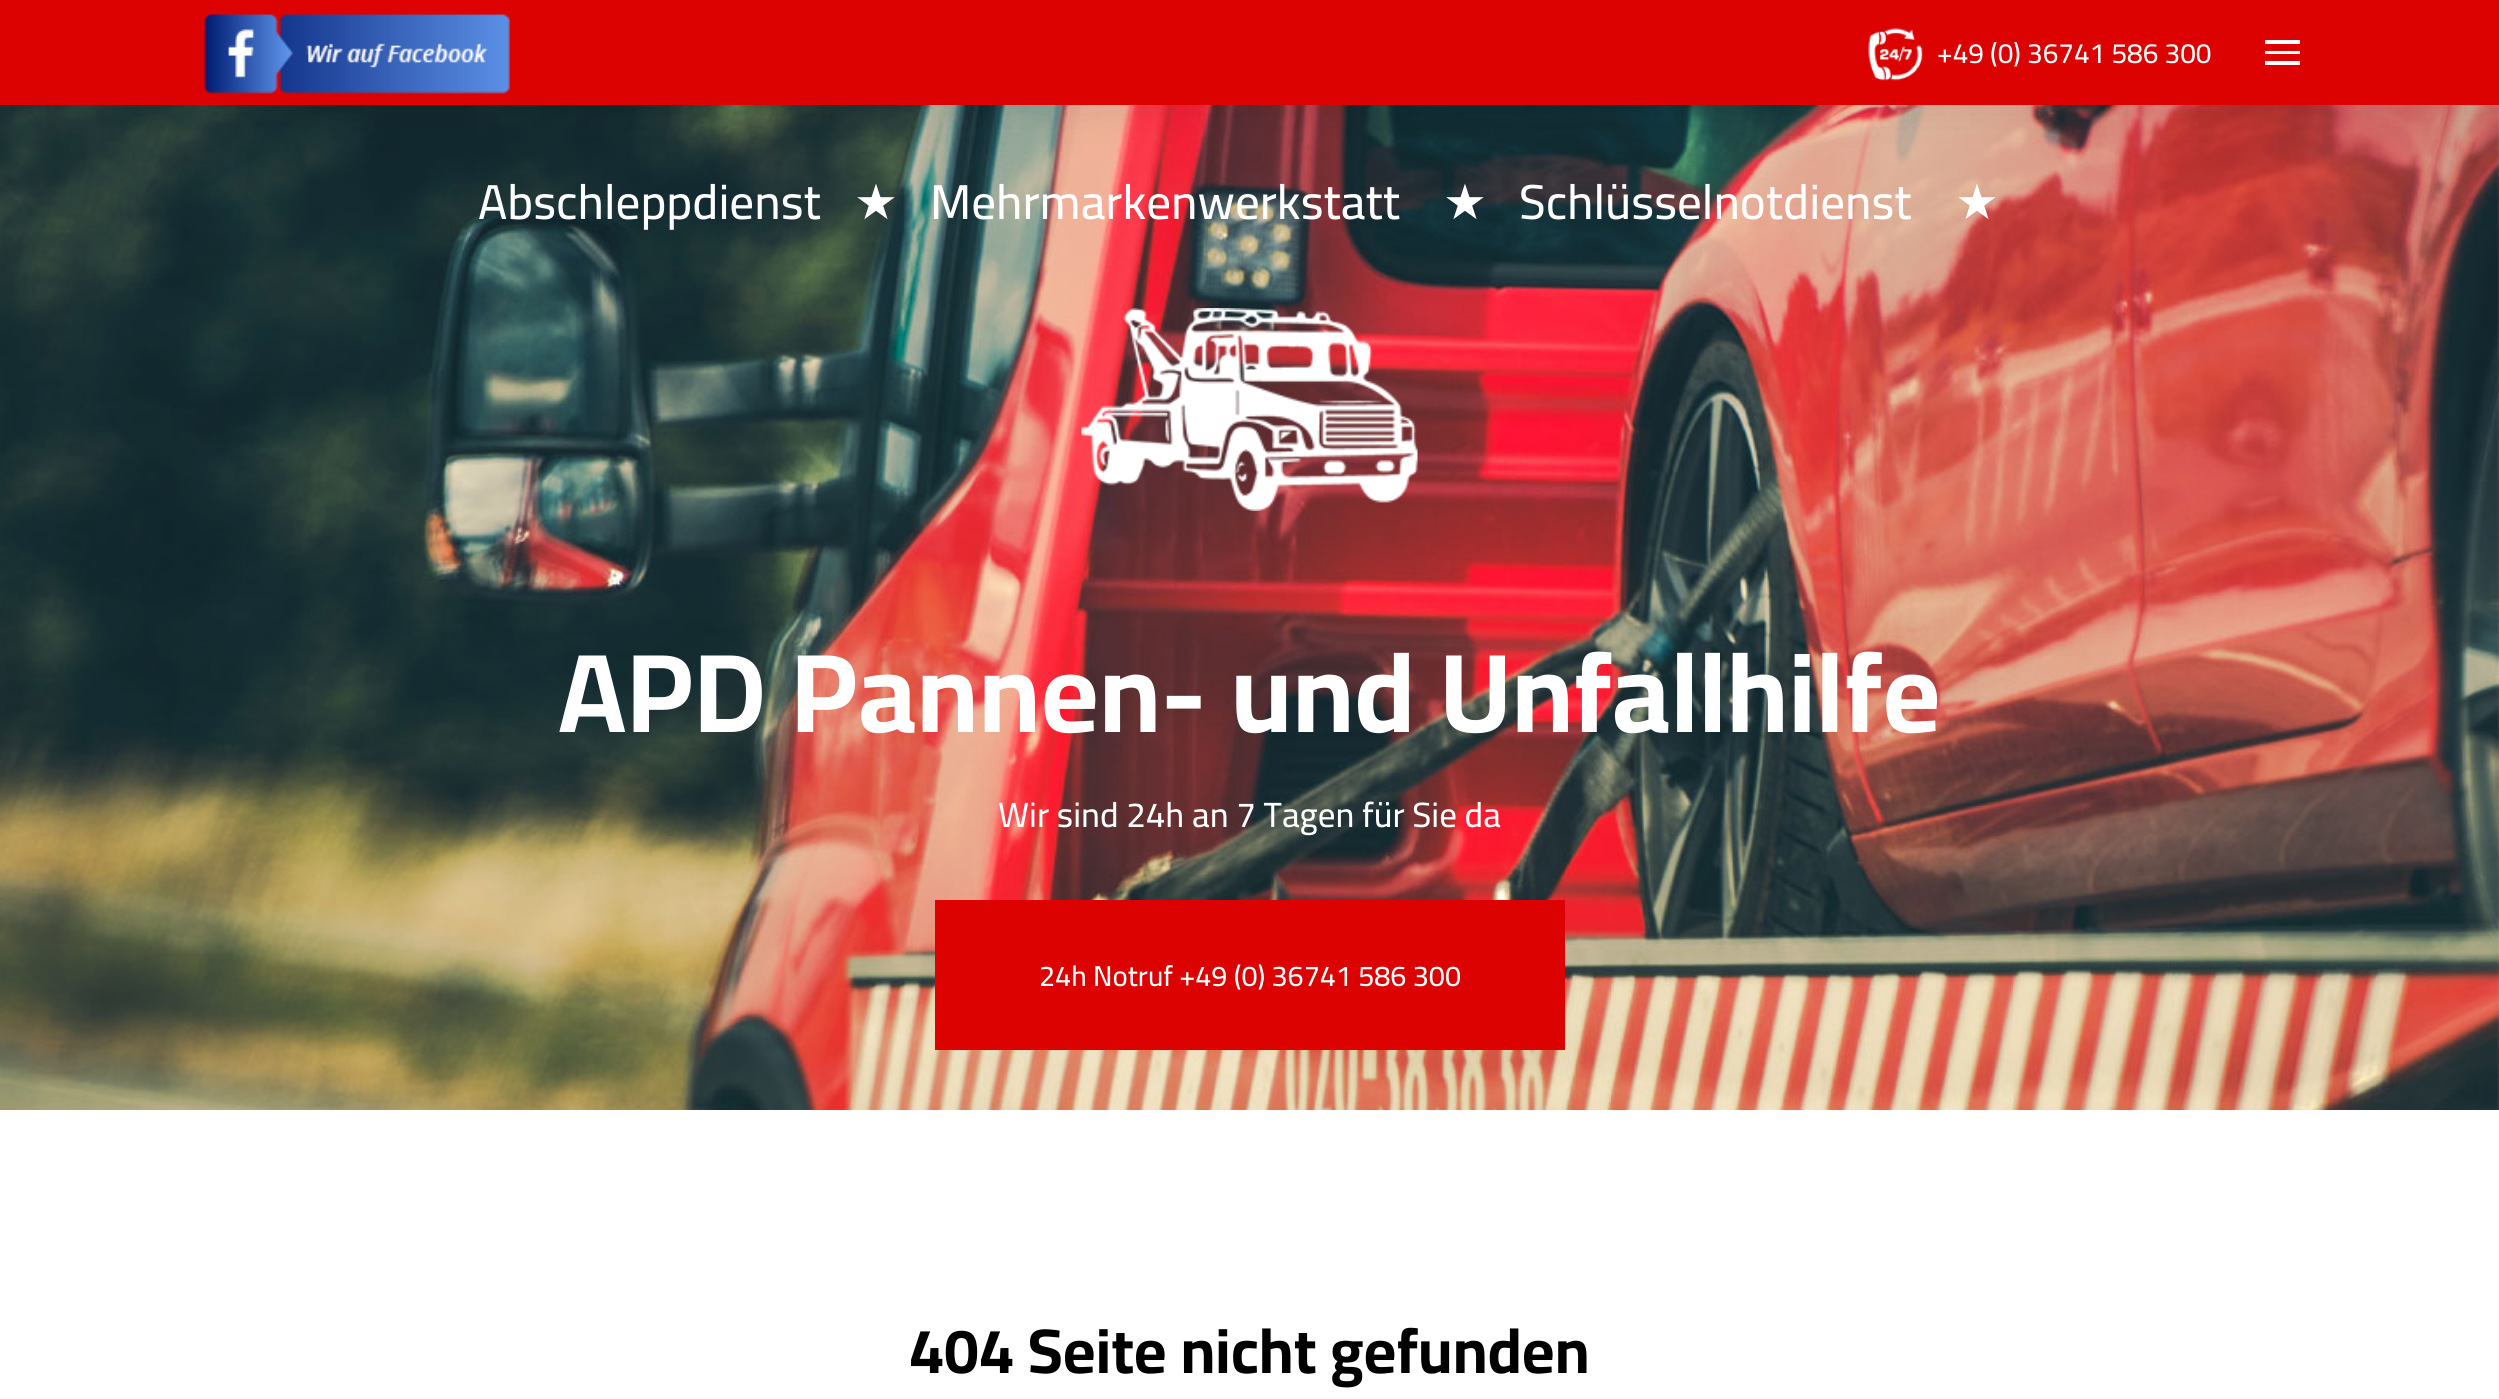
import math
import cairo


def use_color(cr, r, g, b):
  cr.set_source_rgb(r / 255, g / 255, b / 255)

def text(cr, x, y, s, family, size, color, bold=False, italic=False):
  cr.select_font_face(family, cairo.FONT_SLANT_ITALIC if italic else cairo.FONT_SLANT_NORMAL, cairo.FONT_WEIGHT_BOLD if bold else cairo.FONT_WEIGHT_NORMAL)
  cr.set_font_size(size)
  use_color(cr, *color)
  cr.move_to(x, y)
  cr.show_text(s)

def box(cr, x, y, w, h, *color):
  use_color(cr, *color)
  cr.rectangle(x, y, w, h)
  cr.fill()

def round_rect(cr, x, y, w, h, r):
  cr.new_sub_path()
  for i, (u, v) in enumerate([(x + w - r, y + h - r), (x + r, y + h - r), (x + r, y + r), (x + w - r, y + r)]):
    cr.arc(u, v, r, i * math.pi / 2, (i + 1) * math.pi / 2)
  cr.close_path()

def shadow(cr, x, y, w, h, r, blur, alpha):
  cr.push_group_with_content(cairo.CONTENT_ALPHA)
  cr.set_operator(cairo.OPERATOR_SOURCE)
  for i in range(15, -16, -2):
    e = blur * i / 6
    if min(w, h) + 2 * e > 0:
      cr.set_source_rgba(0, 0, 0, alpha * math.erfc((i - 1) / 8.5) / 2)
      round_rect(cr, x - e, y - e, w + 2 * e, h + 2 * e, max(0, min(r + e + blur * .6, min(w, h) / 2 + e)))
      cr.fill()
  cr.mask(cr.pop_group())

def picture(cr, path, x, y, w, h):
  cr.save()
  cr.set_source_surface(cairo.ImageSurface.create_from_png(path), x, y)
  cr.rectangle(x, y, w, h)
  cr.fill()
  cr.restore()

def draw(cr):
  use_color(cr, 255, 255, 255)
  cr.paint()
  picture(cr, "img_03.png", 0, 105, 2499, 1005)
  use_color(cr, 0, 0, 0)
  shadow(cr, 0, 0, 2499, 105, 0, 21, 0.1)
  box(cr, 0, 0, 2499, 105, 220, 2, 2)
  picture(cr, "img_01.png", 204, 14, 306, 80)
  picture(cr, "img_02.png", 1868, 28, 55, 53)
  box(cr, 2265, 40, 35, 4, 255, 255, 255)
  box(cr, 2265, 51, 35, 3, 255, 255, 255)
  box(cr, 2265, 61, 35, 4, 255, 255, 255)
  picture(cr, "img_04.png", 1081, 308, 337, 203)
  box(cr, 935, 900, 630, 150, 220, 2, 2)
  text(cr, 1937, 63, "+49 (0) 36741 586 300", "Cairo Medium", 28, (255, 255, 255))
  text(cr, 478, 219, "Abschleppdienst", "Cairo Medium", 49, (255, 255, 255))
  text(cr, 854, 219, "★", "DejaVu Sans", 49, (255, 255, 255))
  text(cr, 930, 219, "Mehrmarkenwerkstatt", "Cairo Medium", 49, (255, 255, 255))
  text(cr, 1443, 219, "★", "DejaVu Sans", 49, (255, 255, 255))
  text(cr, 1519, 219, "Schlüsselnotdienst", "Cairo Medium", 49, (255, 255, 255))
  text(cr, 1955, 219, "★", "DejaVu Sans", 49, (255, 255, 255))
  text(cr, 558, 732, "APD Pannen- und Unfallhilfe", "Cairo", 112, (255, 255, 255), bold=True)
  text(cr, 998, 827, "Wir sind 24h an 7 Tagen für Sie da", "Cairo Medium", 35, (255, 255, 255))
  text(cr, 1039, 986, "24h Notruf +49 (0) 36741 586 300", "Cairo Medium", 28.75, (255, 255, 255))
  text(cr, 909, 1373, "404 Seite nicht gefunden", "Cairo", 63, (0, 0, 0), bold=True)


surface = cairo.ImageSurface(cairo.FORMAT_RGB24, 2499, 1399)
cr = cairo.Context(surface)
options = cairo.FontOptions()
options.set_hint_metrics(cairo.HINT_METRICS_OFF)
options.set_hint_style(cairo.HINT_STYLE_NONE)
cr.set_font_options(options)
cr.set_miter_limit(4)
draw(cr)
surface.write_to_png("out.png")
